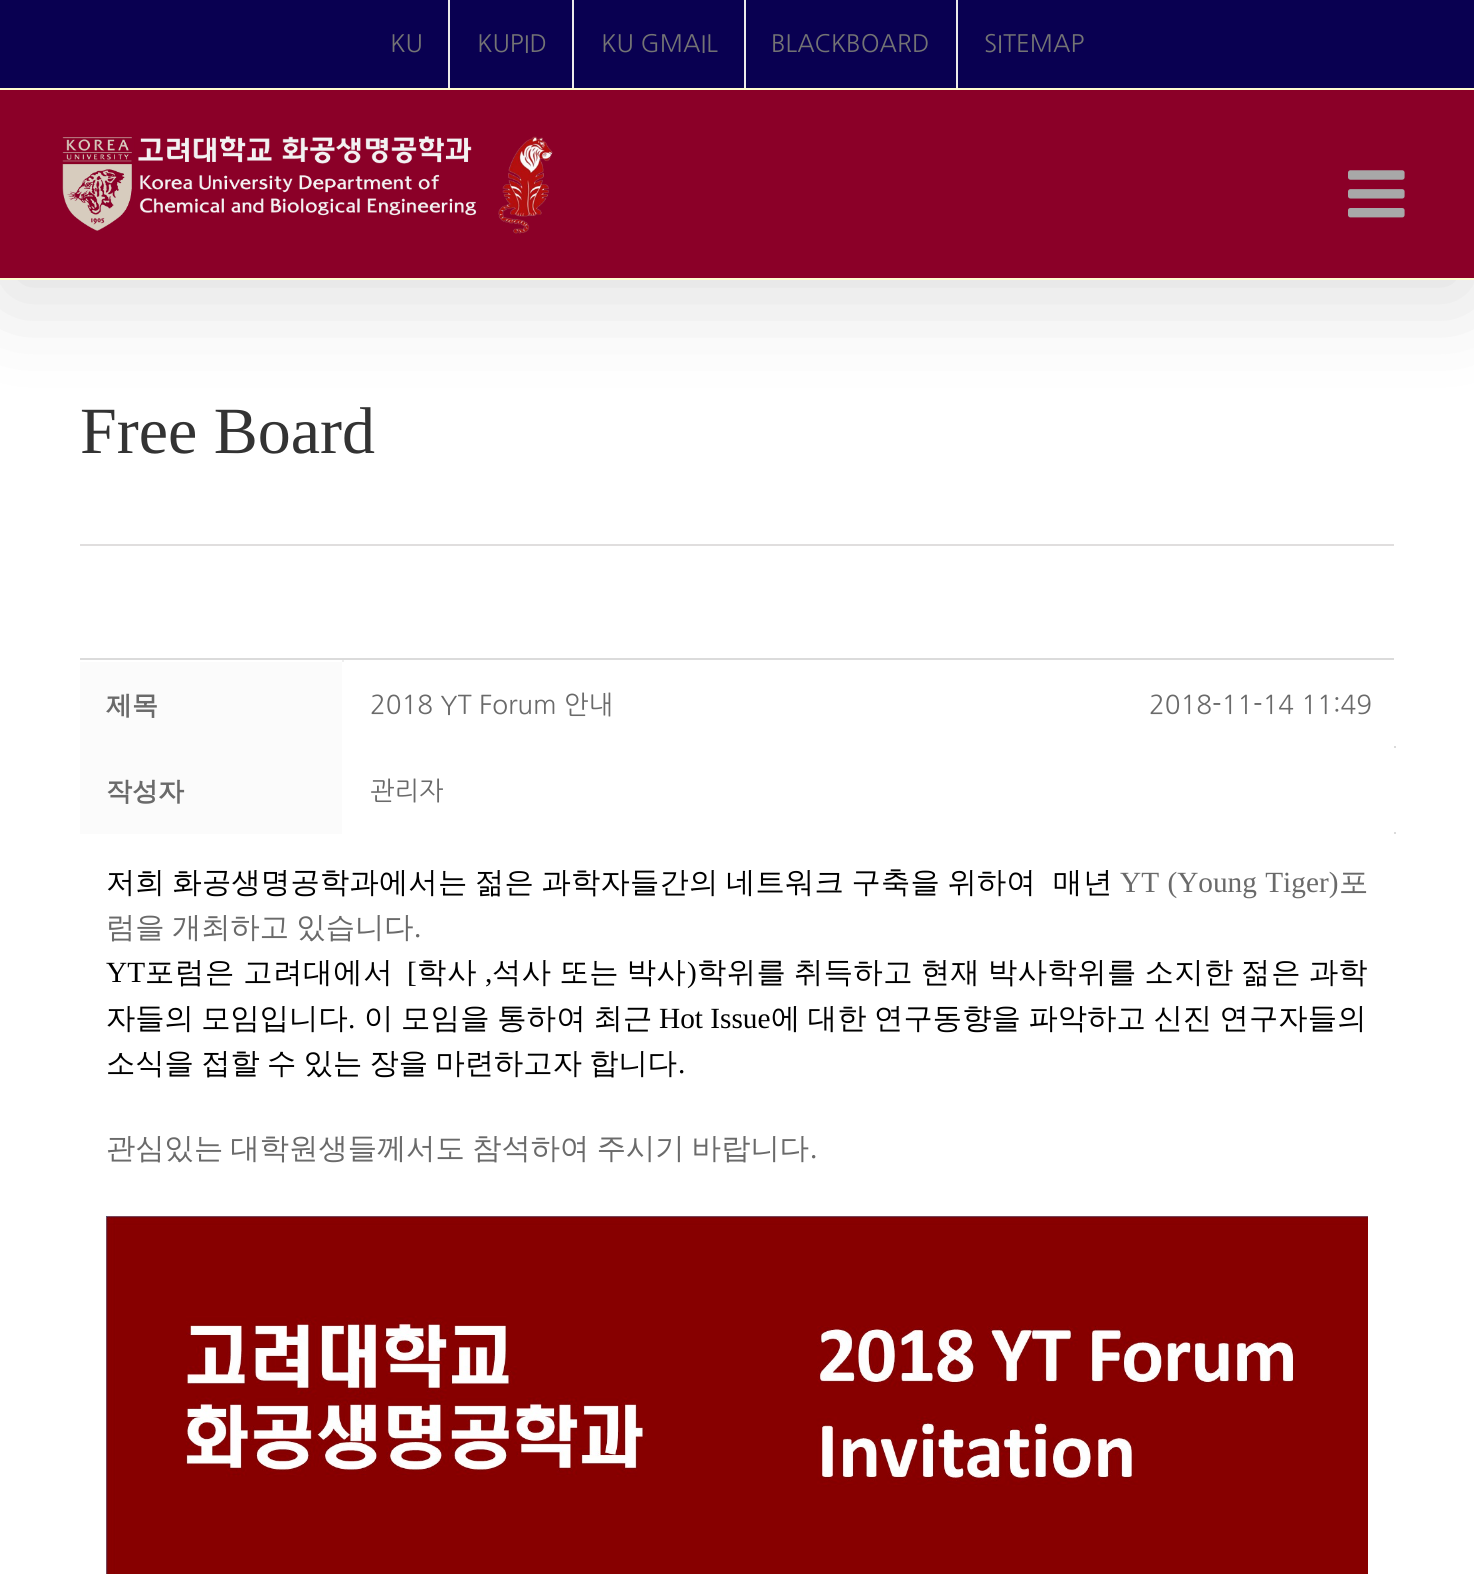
import math
import cairo


def use_color(cr, r, g, b):
  cr.set_source_rgb(r / 255, g / 255, b / 255)

def text(cr, x, y, s, family, size, color, bold=False, italic=False):
  cr.select_font_face(family, cairo.FONT_SLANT_ITALIC if italic else cairo.FONT_SLANT_NORMAL, cairo.FONT_WEIGHT_BOLD if bold else cairo.FONT_WEIGHT_NORMAL)
  cr.set_font_size(size)
  use_color(cr, *color)
  cr.move_to(x, y)
  cr.show_text(s)

def spaced_text(cr, x, y, s, letter, word):
  cr.move_to(x, y)
  for ch in s:
    cr.show_text(ch)
    cr.rel_move_to(letter + word * (ch == ' '), 0)

def box(cr, x, y, w, h, *color):
  use_color(cr, *color)
  cr.rectangle(x, y, w, h)
  cr.fill()

def round_rect(cr, x, y, w, h, r):
  cr.new_sub_path()
  for i, (u, v) in enumerate([(x + w - r, y + h - r), (x + r, y + h - r), (x + r, y + r), (x + w - r, y + r)]):
    cr.arc(u, v, r, i * math.pi / 2, (i + 1) * math.pi / 2)
  cr.close_path()

def shadow(cr, x, y, w, h, r, blur, alpha):
  cr.push_group_with_content(cairo.CONTENT_ALPHA)
  cr.set_operator(cairo.OPERATOR_SOURCE)
  for i in range(15, -16, -2):
    e = blur * i / 6
    if min(w, h) + 2 * e > 0:
      cr.set_source_rgba(0, 0, 0, alpha * math.erfc((i - 1) / 8.5) / 2)
      round_rect(cr, x - e, y - e, w + 2 * e, h + 2 * e, max(0, min(r + e + blur * .6, min(w, h) / 2 + e)))
      cr.fill()
  cr.mask(cr.pop_group())

def picture(cr, path, x, y, w, h):
  cr.save()
  cr.set_source_surface(cairo.ImageSurface.create_from_png(path), x, y)
  cr.rectangle(x, y, w, h)
  cr.fill()
  cr.restore()

def draw(cr):
  use_color(cr, 255, 255, 255)
  cr.paint()
  use_color(cr, 0, 0, 0)
  shadow(cr, 4, 24, 1466, 272, 0, 50, 0.14)
  box(cr, 0, 0, 1474, 88, 9, 0, 81)
  box(cr, 0, 88, 1474, 2, 255, 253, 208)
  box(cr, 448, 0, 2, 88, 235, 234, 234)
  box(cr, 572, 0, 2, 88, 235, 234, 234)
  box(cr, 744, 0, 2, 88, 235, 234, 234)
  box(cr, 956, 0, 2, 88, 235, 234, 234)
  box(cr, 0, 90, 1474, 188, 139, 0, 40)
  box(cr, 0, 278, 1474, 2, 255, 253, 208)
  picture(cr, "img_01.png", 62, 136, 491, 98)
  picture(cr, "img_02.png", 1348, 170, 57, 48)
  box(cr, 80, 544, 1314, 2, 224, 222, 222)
  box(cr, 80, 658, 1314, 2, 219, 219, 219)
  box(cr, 342, 660, 2, 2, 239, 239, 239)
  box(cr, 80, 662, 262, 172, 251, 251, 251)
  box(cr, 1394, 746, 2, 2, 219, 219, 219)
  box(cr, 1394, 832, 2, 2, 219, 219, 219)
  picture(cr, "img_03.png", 106, 1216, 1262, 358)
  text(cr, 390, 52, "KU", "NanumGothic", 24, (116, 116, 116))
  text(cr, 477, 52, "KUPID", "NanumGothic", 24, (116, 116, 116))
  text(cr, 601, 52, "KU GMAIL", "NanumGothic", 24, (116, 116, 116))
  text(cr, 771, 52, "BLACKBOARD", "NanumGothic", 24, (116, 116, 116))
  text(cr, 984, 52, "SITEMAP", "NanumGothic", 24, (116, 116, 116))
  text(cr, 80, 453, "Free Board", "Liberation Serif", 66, (51, 51, 51))
  text(cr, 106, 714, "제목", "WenQuanYi Zen Hei", 26, (106, 106, 106), bold=True)
  text(cr, 370, 714, "2018 YT Forum 안내", "NanumGothic", 26, (106, 106, 106))
  text(cr, 1149, 714, "2018-11-14 11:49", "NanumGothic", 26, (106, 106, 106))
  text(cr, 106, 800, "작성자", "WenQuanYi Zen Hei", 26, (106, 106, 106), bold=True)
  text(cr, 370, 800, "관리자", "NanumGothic", 26, (106, 106, 106))
  cr.select_font_face("WenQuanYi Zen Hei Medium")
  cr.set_font_size(29.3)
  use_color(cr, 0, 0, 0)
  spaced_text(cr, 106, 892, "저희 화공생명공학과에서는 젊은 과학자들간의 네트워크 구축을 위하여", 0.2, -1.5)
  spaced_text(cr, 1053, 892, "매년", 1, 0)
  cr.select_font_face("Liberation Serif")
  use_color(cr, 106, 106, 106)
  spaced_text(cr, 1120, 892, "YT (Young Tiger)", 0, 1)
  text(cr, 1339, 892, "포", "WenQuanYi Zen Hei Medium", 29.3, (106, 106, 106))
  spaced_text(cr, 106, 937, "럼을 개최하고 있습니다", 0, -1.5)
  text(cr, 414, 937, ".", "Liberation Serif", 29.3, (106, 106, 106))
  text(cr, 106, 982, "YT", "Liberation Serif", 29.3, (0, 0, 0))
  cr.select_font_face("WenQuanYi Zen Hei Medium")
  spaced_text(cr, 145, 982, "포럼은 고려대에서", 0.75, -1.5)
  text(cr, 407, 982, "[", "Liberation Serif", 29.3, (0, 0, 0))
  cr.select_font_face("WenQuanYi Zen Hei Medium")
  spaced_text(cr, 417, 982, "학사", 1, 0)
  spaced_text(cr, 492, 982, "석사 또는 박사", 0.5, -1.5)
  text(cr, 687, 982, ")", "Liberation Serif", 29.3, (0, 0, 0))
  cr.select_font_face("WenQuanYi Zen Hei Medium")
  spaced_text(cr, 697, 982, "학위를 취득하고 현재 박사학위를 소지한", 0.45, -1.5)
  spaced_text(cr, 1241, 982, "젊은", 1, 0)
  text(cr, 1309, 982, "과학", "WenQuanYi Zen Hei Medium", 29.3, (0, 0, 0))
  text(cr, 485, 982, ",", "Liberation Serif", 29.3, (0, 0, 0))
  cr.select_font_face("WenQuanYi Zen Hei Medium")
  spaced_text(cr, 106, 1028, "자들의 모임입니다", 0, -1.5)
  text(cr, 348, 1028, ".", "Liberation Serif", 29.3, (0, 0, 0))
  cr.select_font_face("WenQuanYi Zen Hei Medium")
  spaced_text(cr, 364, 1028, "이 모임을 통하여 최근", 0.25, -1.5)
  text(cr, 659, 1028, "Hot Issue", "Liberation Serif", 29.3, (0, 0, 0))
  cr.select_font_face("WenQuanYi Zen Hei Medium")
  spaced_text(cr, 771, 1028, "에 대한 연구동향을 파악하고 신진 연구자들의", 0.1, -1.5)
  spaced_text(cr, 106, 1073, "소식을 접할 수 있는 장을 마련하고자 합니다", 0, -1.5)
  text(cr, 678, 1073, ".", "Liberation Serif", 29.3, (0, 0, 0))
  cr.select_font_face("WenQuanYi Zen Hei Medium")
  use_color(cr, 106, 106, 106)
  spaced_text(cr, 106, 1158, "관심있는 대학원생들께서도 참석하여 주시기 바랍니다", 0, -1.5)
  text(cr, 810, 1158, ".", "Liberation Serif", 29.3, (106, 106, 106))


surface = cairo.ImageSurface(cairo.FORMAT_RGB24, 1474, 1574)
cr = cairo.Context(surface)
options = cairo.FontOptions()
options.set_hint_metrics(cairo.HINT_METRICS_OFF)
options.set_hint_style(cairo.HINT_STYLE_NONE)
cr.set_font_options(options)
cr.set_miter_limit(4)
draw(cr)
surface.write_to_png("out.png")
